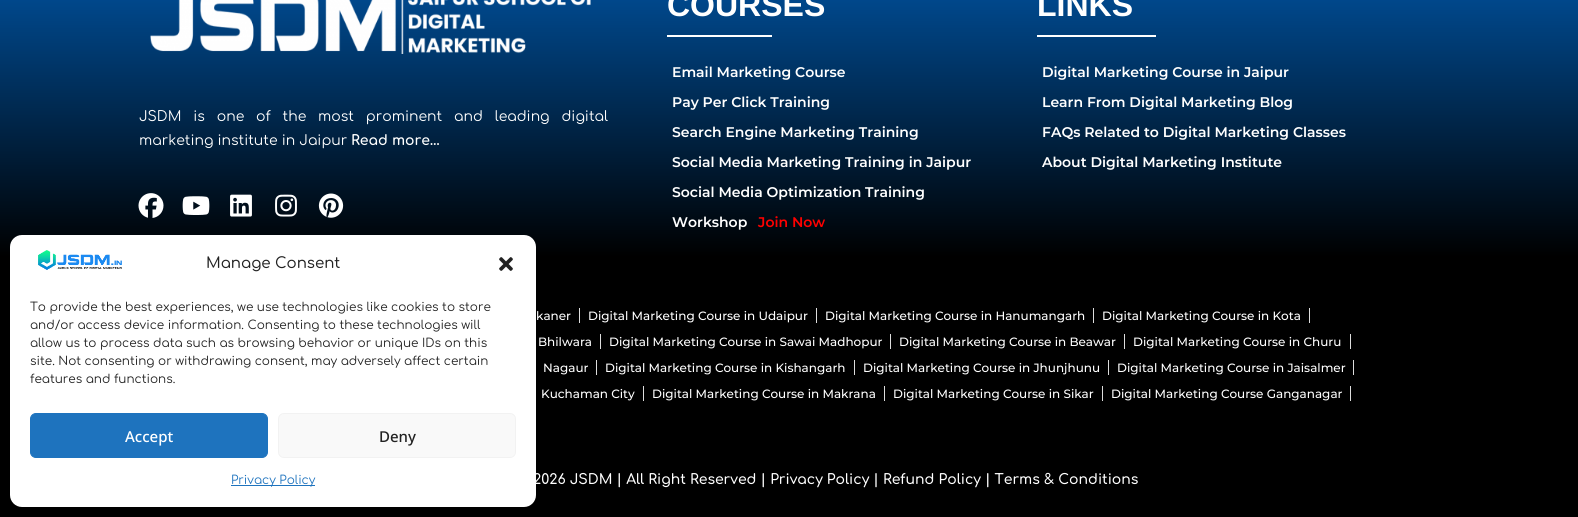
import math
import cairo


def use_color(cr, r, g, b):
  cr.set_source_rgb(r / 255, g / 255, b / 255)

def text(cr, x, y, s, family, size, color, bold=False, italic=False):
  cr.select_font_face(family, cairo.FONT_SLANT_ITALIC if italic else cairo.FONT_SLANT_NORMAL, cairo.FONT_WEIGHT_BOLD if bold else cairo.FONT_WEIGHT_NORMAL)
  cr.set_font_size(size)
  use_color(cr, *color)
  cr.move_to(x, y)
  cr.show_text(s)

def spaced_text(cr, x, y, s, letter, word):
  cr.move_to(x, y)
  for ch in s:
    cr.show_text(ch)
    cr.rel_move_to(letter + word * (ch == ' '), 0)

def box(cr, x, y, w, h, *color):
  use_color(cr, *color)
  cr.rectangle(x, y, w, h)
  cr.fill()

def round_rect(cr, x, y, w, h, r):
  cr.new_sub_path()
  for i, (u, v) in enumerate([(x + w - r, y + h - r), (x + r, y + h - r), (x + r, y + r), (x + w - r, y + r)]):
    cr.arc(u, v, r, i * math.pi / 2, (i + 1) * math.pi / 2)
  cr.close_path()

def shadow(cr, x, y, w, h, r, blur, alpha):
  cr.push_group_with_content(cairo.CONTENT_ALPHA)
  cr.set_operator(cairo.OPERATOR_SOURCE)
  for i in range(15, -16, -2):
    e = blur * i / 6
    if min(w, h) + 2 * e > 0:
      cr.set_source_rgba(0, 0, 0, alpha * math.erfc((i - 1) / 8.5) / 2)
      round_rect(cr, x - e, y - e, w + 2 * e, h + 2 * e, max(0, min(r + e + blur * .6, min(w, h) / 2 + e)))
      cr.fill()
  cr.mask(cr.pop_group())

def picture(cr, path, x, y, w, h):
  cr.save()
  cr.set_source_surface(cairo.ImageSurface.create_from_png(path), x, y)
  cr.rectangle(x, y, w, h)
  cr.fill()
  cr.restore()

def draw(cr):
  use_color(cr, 255, 255, 255)
  cr.paint()
  gradient = cairo.LinearGradient(789, -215, 789, 257)
  gradient.add_color_stop_rgba(0, 0, 0.514, 1, 1)
  gradient.add_color_stop_rgba(1, 0, 0, 0, 1)
  cr.set_source(gradient)
  cr.rectangle(0, 0, 1578, 257)
  cr.fill()
  picture(cr, "img_01.png", 150, 0, 441, 54)
  picture(cr, "img_02.png", 138, 193, 26, 25)
  picture(cr, "img_03.png", 182, 196, 28, 19)
  picture(cr, "img_04.png", 230, 194, 22, 23)
  picture(cr, "img_05.png", 275, 194, 22, 23)
  picture(cr, "img_06.png", 318, 193, 26, 25)
  box(cr, 667, 35, 105, 2, 255, 255, 255)
  box(cr, 1037, 35, 119, 2, 255, 255, 255)
  box(cr, 0, 257, 1578, 260, 0, 0, 0)
  box(cr, 579, 308, 1, 15, 221, 221, 221)
  box(cr, 816, 308, 1, 15, 221, 221, 221)
  box(cr, 1093, 308, 1, 15, 221, 221, 221)
  box(cr, 1309, 308, 1, 15, 221, 221, 221)
  box(cr, 600, 334, 1, 15, 221, 221, 221)
  box(cr, 890, 334, 1, 15, 221, 221, 221)
  box(cr, 1124, 334, 1, 15, 221, 221, 221)
  box(cr, 1350, 334, 1, 15, 221, 221, 221)
  box(cr, 596, 360, 1, 15, 221, 221, 221)
  box(cr, 854, 360, 1, 15, 221, 221, 221)
  box(cr, 1108, 360, 1, 15, 221, 221, 221)
  box(cr, 1353, 360, 1, 15, 221, 221, 221)
  box(cr, 643, 386, 1, 15, 221, 221, 221)
  box(cr, 884, 386, 1, 15, 221, 221, 221)
  box(cr, 1102, 386, 1, 15, 221, 221, 221)
  box(cr, 1350, 386, 1, 15, 221, 221, 221)
  use_color(cr, 0, 0, 0)
  shadow(cr, 10, 241, 526, 272, 12, 3, 0.23)
  shadow(cr, 10, 245, 526, 272, 12, 10, 0.19)
  use_color(cr, 255, 255, 255)
  round_rect(cr, 10, 235, 526, 272, 12)
  cr.fill()
  picture(cr, "img_07.png", 38, 250, 84, 20)
  picture(cr, "img_08.png", 499, 257, 14, 14)
  use_color(cr, 30, 115, 190)
  round_rect(cr, 30.5, 413.5, 237, 44, 5.5)
  cr.fill_preserve()
  cr.set_line_width(1)
  cr.stroke()
  use_color(cr, 249, 249, 249)
  round_rect(cr, 278.5, 413.5, 237, 44, 5.5)
  cr.fill_preserve()
  use_color(cr, 242, 242, 242)
  cr.stroke()
  box(cr, 231, 485, 84, 1, 30, 115, 190)
  cr.select_font_face("Comfortaa")
  cr.set_font_size(14)
  use_color(cr, 255, 255, 255)
  spaced_text(cr, 139, 121, "JSDM is one of the most prominent and leading digital", 0, 7.75)
  text(cr, 139, 145, "marketing institute in Jaipur", "Comfortaa", 14, (255, 255, 255))
  text(cr, 351, 145, "Read more…", "Comfortaa", 14, (255, 255, 255), bold=True)
  text(cr, 667, 16, "COURSES", "Liberation Sans", 32, (255, 255, 255), bold=True)
  text(cr, 672, 77, "Email Marketing Course", "Montserrat SemiBold", 14, (255, 255, 255))
  text(cr, 672, 107, "Pay Per Click Training", "Montserrat SemiBold", 14, (255, 255, 255))
  text(cr, 672, 137, "Search Engine Marketing Training", "Montserrat SemiBold", 14, (255, 255, 255))
  text(cr, 672, 167, "Social Media Marketing Training in Jaipur", "Montserrat SemiBold", 14, (255, 255, 255))
  text(cr, 672, 197, "Social Media Optimization Training", "Montserrat SemiBold", 14, (255, 255, 255))
  text(cr, 672, 227, "Workshop", "Montserrat SemiBold", 14, (255, 255, 255))
  text(cr, 758, 227, "Join Now", "Montserrat SemiBold", 14, (255, 0, 0))
  text(cr, 1037, 16, "LINKS", "Liberation Sans", 32, (255, 255, 255), bold=True)
  text(cr, 1042, 77, "Digital Marketing Course in Jaipur", "Montserrat SemiBold", 14, (255, 255, 255))
  text(cr, 1042, 107, "Learn From Digital Marketing Blog", "Montserrat SemiBold", 14, (255, 255, 255))
  text(cr, 1042, 137, "FAQs Related to Digital Marketing Classes", "Montserrat SemiBold", 14, (255, 255, 255))
  text(cr, 1042, 167, "About Digital Marketing Institute", "Montserrat SemiBold", 14, (255, 255, 255))
  text(cr, 536, 320, "kaner", "Montserrat Medium", 12, (255, 255, 255))
  text(cr, 588, 320, "Digital Marketing Course in Udaipur", "Montserrat Medium", 12, (255, 255, 255))
  text(cr, 825, 320, "Digital Marketing Course in Hanumangarh", "Montserrat Medium", 12, (255, 255, 255))
  text(cr, 1102, 320, "Digital Marketing Course in Kota", "Montserrat Medium", 12, (255, 255, 255))
  text(cr, 538, 346, "Bhilwara", "Montserrat Medium", 12, (255, 255, 255))
  text(cr, 609, 346, "Digital Marketing Course in Sawai Madhopur", "Montserrat Medium", 12, (255, 255, 255))
  text(cr, 899, 346, "Digital Marketing Course in Beawar", "Montserrat Medium", 12, (255, 255, 255))
  text(cr, 1133, 346, "Digital Marketing Course in Churu", "Montserrat Medium", 12, (255, 255, 255))
  text(cr, 543, 372, "Nagaur", "Montserrat Medium", 12, (255, 255, 255))
  text(cr, 605, 372, "Digital Marketing Course in Kishangarh", "Montserrat Medium", 12, (255, 255, 255))
  text(cr, 863, 372, "Digital Marketing Course in Jhunjhunu", "Montserrat Medium", 12, (255, 255, 255))
  text(cr, 1117, 372, "Digital Marketing Course in Jaisalmer", "Montserrat Medium", 12, (255, 255, 255))
  text(cr, 541, 398, "Kuchaman City", "Montserrat Medium", 12, (255, 255, 255))
  text(cr, 652, 398, "Digital Marketing Course in Makrana", "Montserrat Medium", 12, (255, 255, 255))
  text(cr, 893, 398, "Digital Marketing Course in Sikar", "Montserrat Medium", 12, (255, 255, 255))
  text(cr, 1111, 398, "Digital Marketing Course Ganganagar", "Montserrat Medium", 12, (255, 255, 255))
  text(cr, 533, 484, "2026 JSDM | All Right Reserved | Privacy Policy | Refund Policy | Terms & Conditions", "Comfortaa SemiBold", 14, (255, 255, 255))
  text(cr, 206, 268, "Manage Consent", "Comfortaa Medium", 15, (34, 34, 34))
  text(cr, 30, 311, "To provide the best experiences, we use technologies like cookies to store", "Comfortaa", 12, (34, 34, 34))
  text(cr, 30, 329, "and/or access device information. Consenting to these technologies will", "Comfortaa", 12, (34, 34, 34))
  text(cr, 30, 347, "allow us to process data such as browsing behavior or unique IDs on this", "Comfortaa", 12, (34, 34, 34))
  text(cr, 30, 365, "site. Not consenting or withdrawing consent, may adversely affect certain", "Comfortaa", 12, (34, 34, 34))
  text(cr, 30, 383, "features and functions.", "Comfortaa", 12, (34, 34, 34))
  text(cr, 125, 442, "Accept", "Noto Sans Medium", 15, (255, 255, 255))
  text(cr, 379, 442, "Deny", "Noto Sans Medium", 15, (34, 34, 34))
  text(cr, 231, 484, "Privacy Policy", "Comfortaa", 12, (30, 115, 190))


surface = cairo.ImageSurface(cairo.FORMAT_RGB24, 1578, 517)
cr = cairo.Context(surface)
options = cairo.FontOptions()
options.set_hint_metrics(cairo.HINT_METRICS_OFF)
options.set_hint_style(cairo.HINT_STYLE_NONE)
cr.set_font_options(options)
cr.set_miter_limit(4)
draw(cr)
surface.write_to_png("out.png")
